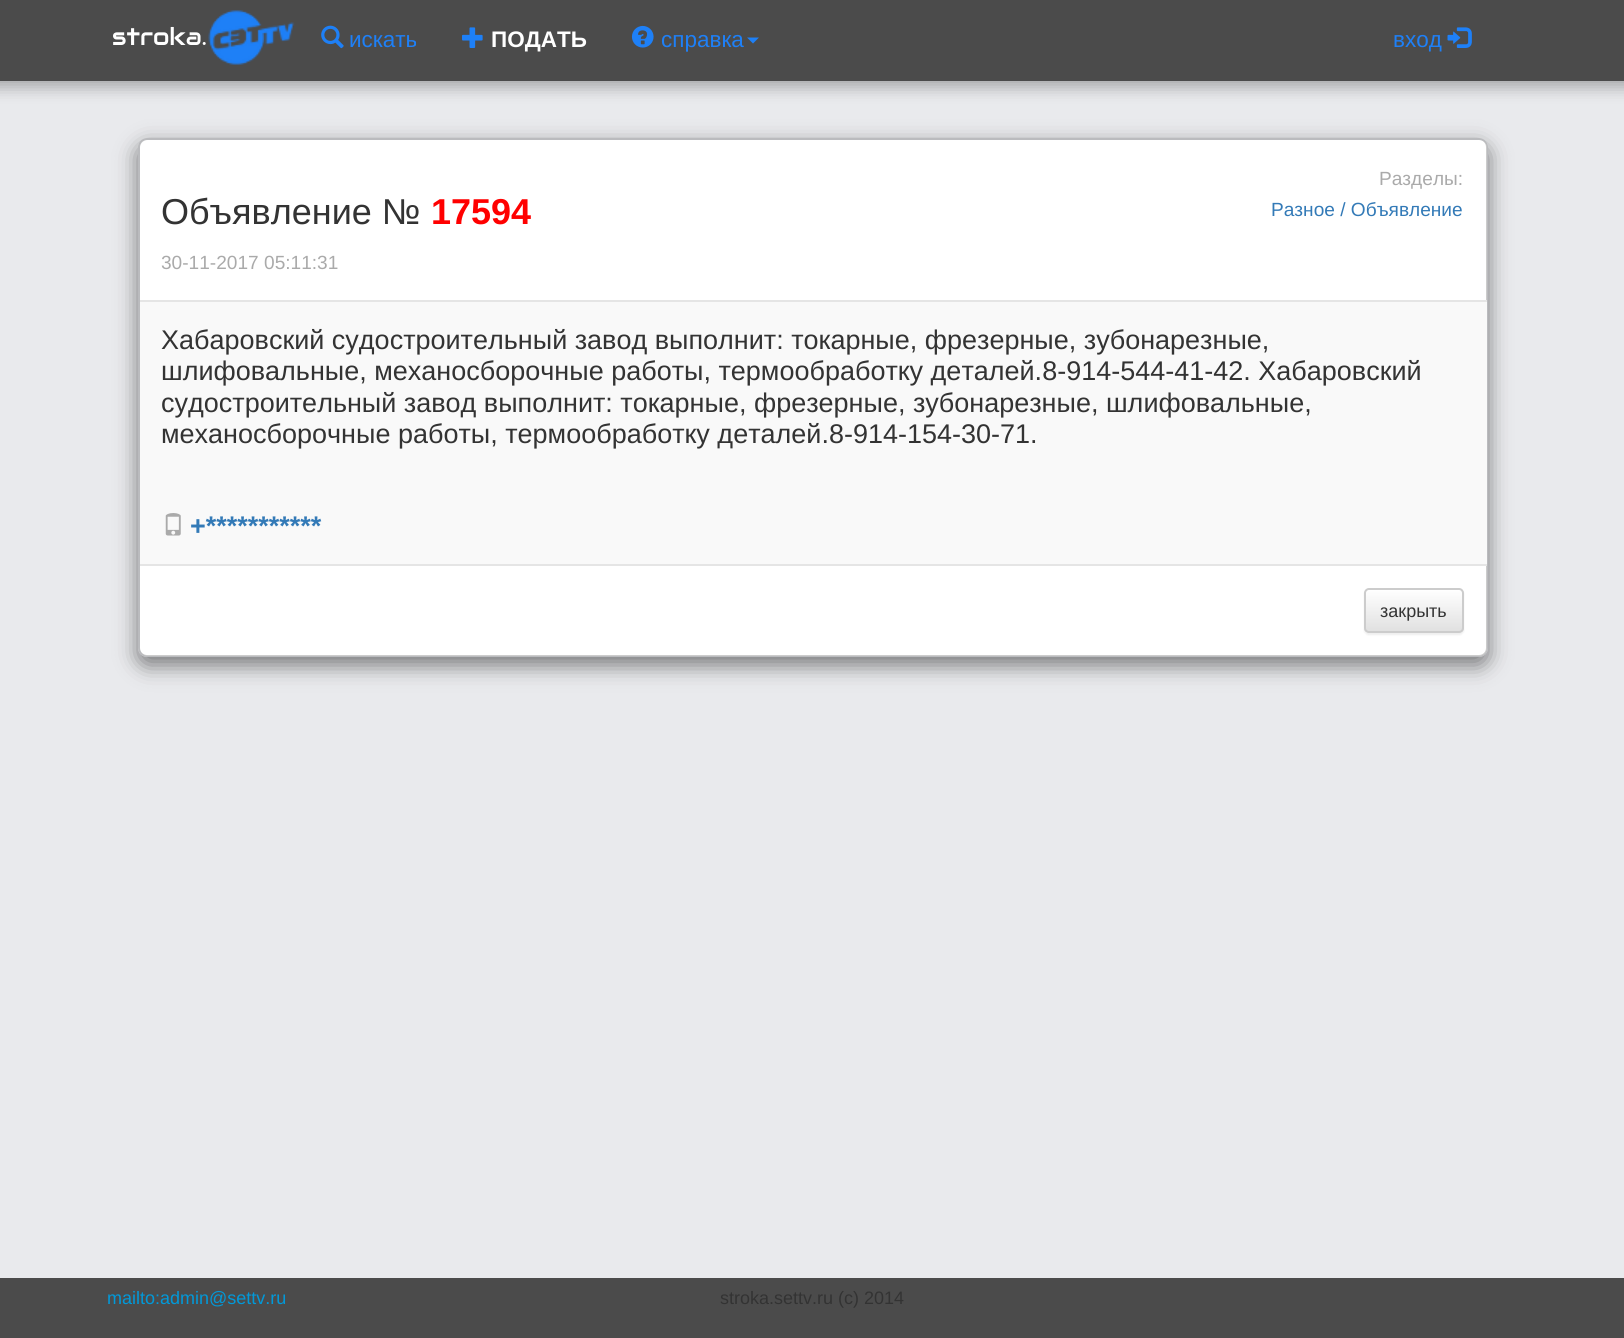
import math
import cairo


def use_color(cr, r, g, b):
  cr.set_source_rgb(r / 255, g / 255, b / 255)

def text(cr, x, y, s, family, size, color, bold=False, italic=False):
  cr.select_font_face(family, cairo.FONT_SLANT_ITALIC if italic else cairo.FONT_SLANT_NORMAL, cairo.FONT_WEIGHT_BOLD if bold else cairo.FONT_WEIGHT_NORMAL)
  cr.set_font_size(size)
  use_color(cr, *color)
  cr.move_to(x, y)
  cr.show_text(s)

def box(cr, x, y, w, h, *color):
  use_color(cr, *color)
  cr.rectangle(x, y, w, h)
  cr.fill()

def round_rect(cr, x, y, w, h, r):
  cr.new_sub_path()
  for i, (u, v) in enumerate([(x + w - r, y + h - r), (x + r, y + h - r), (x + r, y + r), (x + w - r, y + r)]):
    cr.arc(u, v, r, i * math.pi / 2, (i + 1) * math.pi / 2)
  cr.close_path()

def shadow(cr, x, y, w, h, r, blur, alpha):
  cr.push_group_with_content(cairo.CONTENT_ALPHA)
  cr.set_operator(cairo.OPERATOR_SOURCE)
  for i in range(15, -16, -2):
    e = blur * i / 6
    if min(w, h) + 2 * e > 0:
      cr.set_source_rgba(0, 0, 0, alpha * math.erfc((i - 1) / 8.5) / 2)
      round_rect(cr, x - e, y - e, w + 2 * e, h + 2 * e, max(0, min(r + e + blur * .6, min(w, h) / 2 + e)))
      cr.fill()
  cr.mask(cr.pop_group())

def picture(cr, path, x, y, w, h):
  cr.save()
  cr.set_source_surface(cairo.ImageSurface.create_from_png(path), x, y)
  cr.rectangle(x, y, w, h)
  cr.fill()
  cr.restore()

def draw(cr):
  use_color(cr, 233, 234, 237)
  cr.paint()
  use_color(cr, 0, 0, 0)
  shadow(cr, -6, -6, 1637, 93, 0, 8, 0.3)
  box(cr, 0, 0, 1624, 81, 75, 75, 75)
  picture(cr, "img_01.png", 208, 10, 87, 55)
  picture(cr, "img_02.png", 321, 25, 23, 24)
  picture(cr, "img_03.png", 462, 27, 21, 21)
  picture(cr, "img_04.png", 631, 25, 23, 23)
  use_color(cr, 30, 128, 247)
  cr.new_path()
  cr.move_to(747, 37.5)
  cr.line_to(759, 37.5)
  cr.line_to(753, 43.5)
  cr.close_path()
  cr.fill()
  picture(cr, "img_05.png", 1447, 27, 25, 21)
  cr.save()
  cr.set_fill_rule(cairo.FILL_RULE_EVEN_ODD)
  cr.new_path()
  cr.move_to(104, 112)
  cr.line_to(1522, 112)
  cr.line_to(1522, 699)
  cr.line_to(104, 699)
  cr.close_path()
  cr.move_to(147, 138)
  cr.line_to(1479, 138)
  cr.curve_to(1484, 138, 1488, 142, 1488, 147)
  cr.line_to(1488, 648)
  cr.curve_to(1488, 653, 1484, 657, 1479, 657)
  cr.line_to(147, 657)
  cr.curve_to(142, 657, 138, 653, 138, 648)
  cr.line_to(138, 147)
  cr.curve_to(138, 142, 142, 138, 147, 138)
  cr.close_path()
  cr.clip()
  use_color(cr, 0, 0, 0)
  shadow(cr, 138, 146, 1350, 519, 9, 11, 0.5)
  cr.restore()
  use_color(cr, 255, 255, 255)
  round_rect(cr, 140, 140, 1347, 516, 8)
  cr.fill()
  round_rect(cr, 139, 139, 1348, 517, 8)
  cr.set_source_rgba(0, 0, 0, 0.2)
  cr.stroke()
  box(cr, 140, 300, 1347, 2, 229, 229, 229)
  box(cr, 140, 302, 1347, 262, 249, 249, 249)
  picture(cr, "img_06.png", 165, 513, 16, 23)
  box(cr, 140, 564, 1347, 2, 229, 229, 229)
  use_color(cr, 0, 0, 0)
  shadow(cr, 1364, 590, 100, 45, 5, 1, 0.07)
  cr.save()
  round_rect(cr, 1364, 588, 100, 45, 5)
  cr.clip()
  gradient = cairo.LinearGradient(1414, 590, 1414, 632)
  gradient.add_color_stop_rgba(0, 1, 1, 1, 1)
  gradient.add_color_stop_rgba(1, 0.878, 0.878, 0.878, 1)
  cr.set_source(gradient)
  cr.rectangle(1364, 590, 100, 42)
  cr.fill()
  cr.restore()
  cr.set_source_rgba(1, 1, 1, 0.15)
  cr.new_path()
  cr.move_to(1368, 591)
  cr.line_to(1445, 591)
  cr.curve_to(1465, 591, 1462, 587, 1462, 606)
  cr.line_to(1462, 631)
  cr.curve_to(1463, 631, 1463, 630, 1463, 629)
  cr.line_to(1463, 593)
  cr.curve_to(1463, 591, 1462, 590, 1460, 590)
  cr.line_to(1368, 590)
  cr.curve_to(1366, 590, 1365, 591, 1365, 593)
  cr.line_to(1365, 594)
  cr.curve_to(1365, 592, 1366, 591, 1368, 591)
  cr.close_path()
  cr.fill()
  round_rect(cr, 1365, 589, 98, 43, 4)
  use_color(cr, 204, 204, 204)
  cr.stroke()
  box(cr, 0, 1278, 1624, 60, 75, 75, 75)
  text(cr, 112, 45, "stroka.", "Audiowide", 24, (255, 255, 255))
  text(cr, 349, 47, "искать", "Liberation Sans", 22.5, (30, 128, 247))
  text(cr, 491, 47, "ПОДАТЬ", "Liberation Sans", 22.5, (255, 255, 255), bold=True)
  text(cr, 661, 47, "справка", "Liberation Sans", 22.5, (30, 128, 247))
  text(cr, 1393, 47, "вход", "Liberation Sans", 22.5, (30, 128, 247))
  text(cr, 161, 224, "Объявление №", "Liberation Sans", 36, (51, 51, 51))
  text(cr, 431, 224, "17594", "Liberation Sans", 36, (255, 0, 0), bold=True)
  text(cr, 161, 269, "30-11-2017 05:11:31", "Liberation Sans", 19.1, (170, 170, 170))
  text(cr, 1379, 185, "Разделы:", "Liberation Sans", 19.1, (170, 170, 170))
  text(cr, 1271, 216, "Разное / Объявление", "Liberation Sans", 19.1, (51, 122, 183))
  text(cr, 161, 349, "Хабаровский судостроительный завод выполнит: токарные, фрезерные, зубонарезные,", "Liberation Sans", 27, (51, 51, 51))
  text(cr, 161, 380, "шлифовальные, механосборочные работы, термообработку деталей.8-914-544-41-42. Хабаровский", "Liberation Sans", 27, (51, 51, 51))
  text(cr, 161, 412, "судостроительный завод выполнит: токарные, фрезерные, зубонарезные, шлифовальные,", "Liberation Sans", 27, (51, 51, 51))
  text(cr, 161, 443, "механосборочные работы, термообработку деталей.8-914-154-30-71.", "Liberation Sans", 27, (51, 51, 51))
  text(cr, 190, 535, "+***********", "Liberation Sans", 27, (51, 122, 183), bold=True)
  text(cr, 1380, 617, "закрыть", "Liberation Sans", 18, (51, 51, 51))
  text(cr, 107, 1304, "mailto:admin@settv.ru", "Liberation Sans", 18, (1, 153, 217))
  text(cr, 720, 1304, "stroka.settv.ru (c) 2014", "Liberation Sans", 18, (51, 51, 51))


surface = cairo.ImageSurface(cairo.FORMAT_RGB24, 1624, 1338)
cr = cairo.Context(surface)
options = cairo.FontOptions()
options.set_hint_metrics(cairo.HINT_METRICS_OFF)
options.set_hint_style(cairo.HINT_STYLE_NONE)
cr.set_font_options(options)
cr.set_miter_limit(4)
draw(cr)
surface.write_to_png("out.png")
